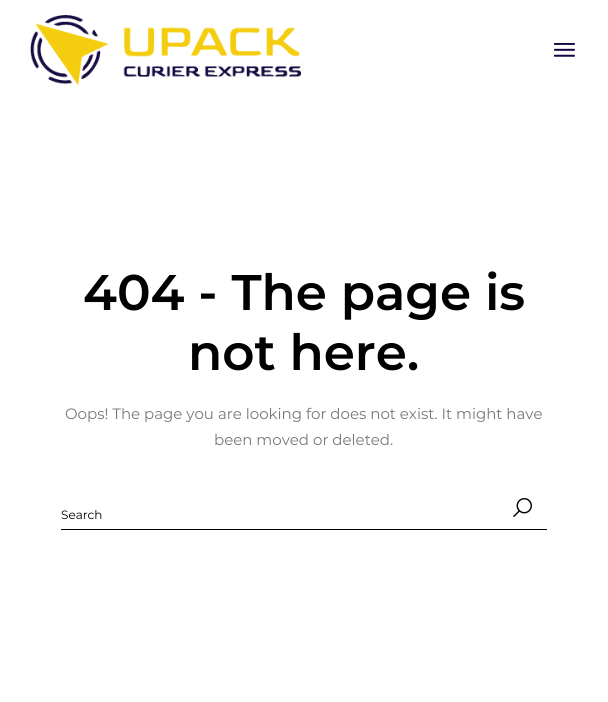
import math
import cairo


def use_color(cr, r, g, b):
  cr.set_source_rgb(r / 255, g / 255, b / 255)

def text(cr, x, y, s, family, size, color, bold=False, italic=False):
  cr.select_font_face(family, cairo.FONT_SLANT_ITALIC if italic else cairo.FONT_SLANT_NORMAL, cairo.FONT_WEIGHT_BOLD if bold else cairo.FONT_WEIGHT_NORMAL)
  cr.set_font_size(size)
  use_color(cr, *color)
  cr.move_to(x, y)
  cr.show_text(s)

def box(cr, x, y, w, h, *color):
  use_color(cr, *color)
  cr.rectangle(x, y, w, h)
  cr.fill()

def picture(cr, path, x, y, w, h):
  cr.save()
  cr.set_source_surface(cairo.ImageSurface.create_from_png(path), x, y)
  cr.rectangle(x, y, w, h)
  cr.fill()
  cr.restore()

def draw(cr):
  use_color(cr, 255, 255, 255)
  cr.paint()
  picture(cr, "img_01.png", 30, 15, 271, 70)
  picture(cr, "img_02.png", 554, 43, 21, 14)
  box(cr, 61, 529, 486, 1, 0, 0, 0)
  picture(cr, "img_03.png", 513, 498, 19, 19)
  text(cr, 83, 310, "404 - The page is", "Montserrat SemiBold", 50, (0, 0, 0))
  text(cr, 188, 370, "not here.", "Montserrat SemiBold", 50, (0, 0, 0))
  text(cr, 65, 419, "Oops! The page you are looking for does not exist. It might have", "Montserrat", 15, (120, 120, 120))
  text(cr, 214, 445, "been moved or deleted.", "Montserrat", 15, (120, 120, 120))
  text(cr, 61, 519, "Search", "Montserrat", 12, (0, 0, 0))


surface = cairo.ImageSurface(cairo.FORMAT_RGB24, 608, 702)
cr = cairo.Context(surface)
options = cairo.FontOptions()
options.set_hint_metrics(cairo.HINT_METRICS_OFF)
options.set_hint_style(cairo.HINT_STYLE_NONE)
cr.set_font_options(options)
cr.set_miter_limit(4)
draw(cr)
surface.write_to_png("out.png")
